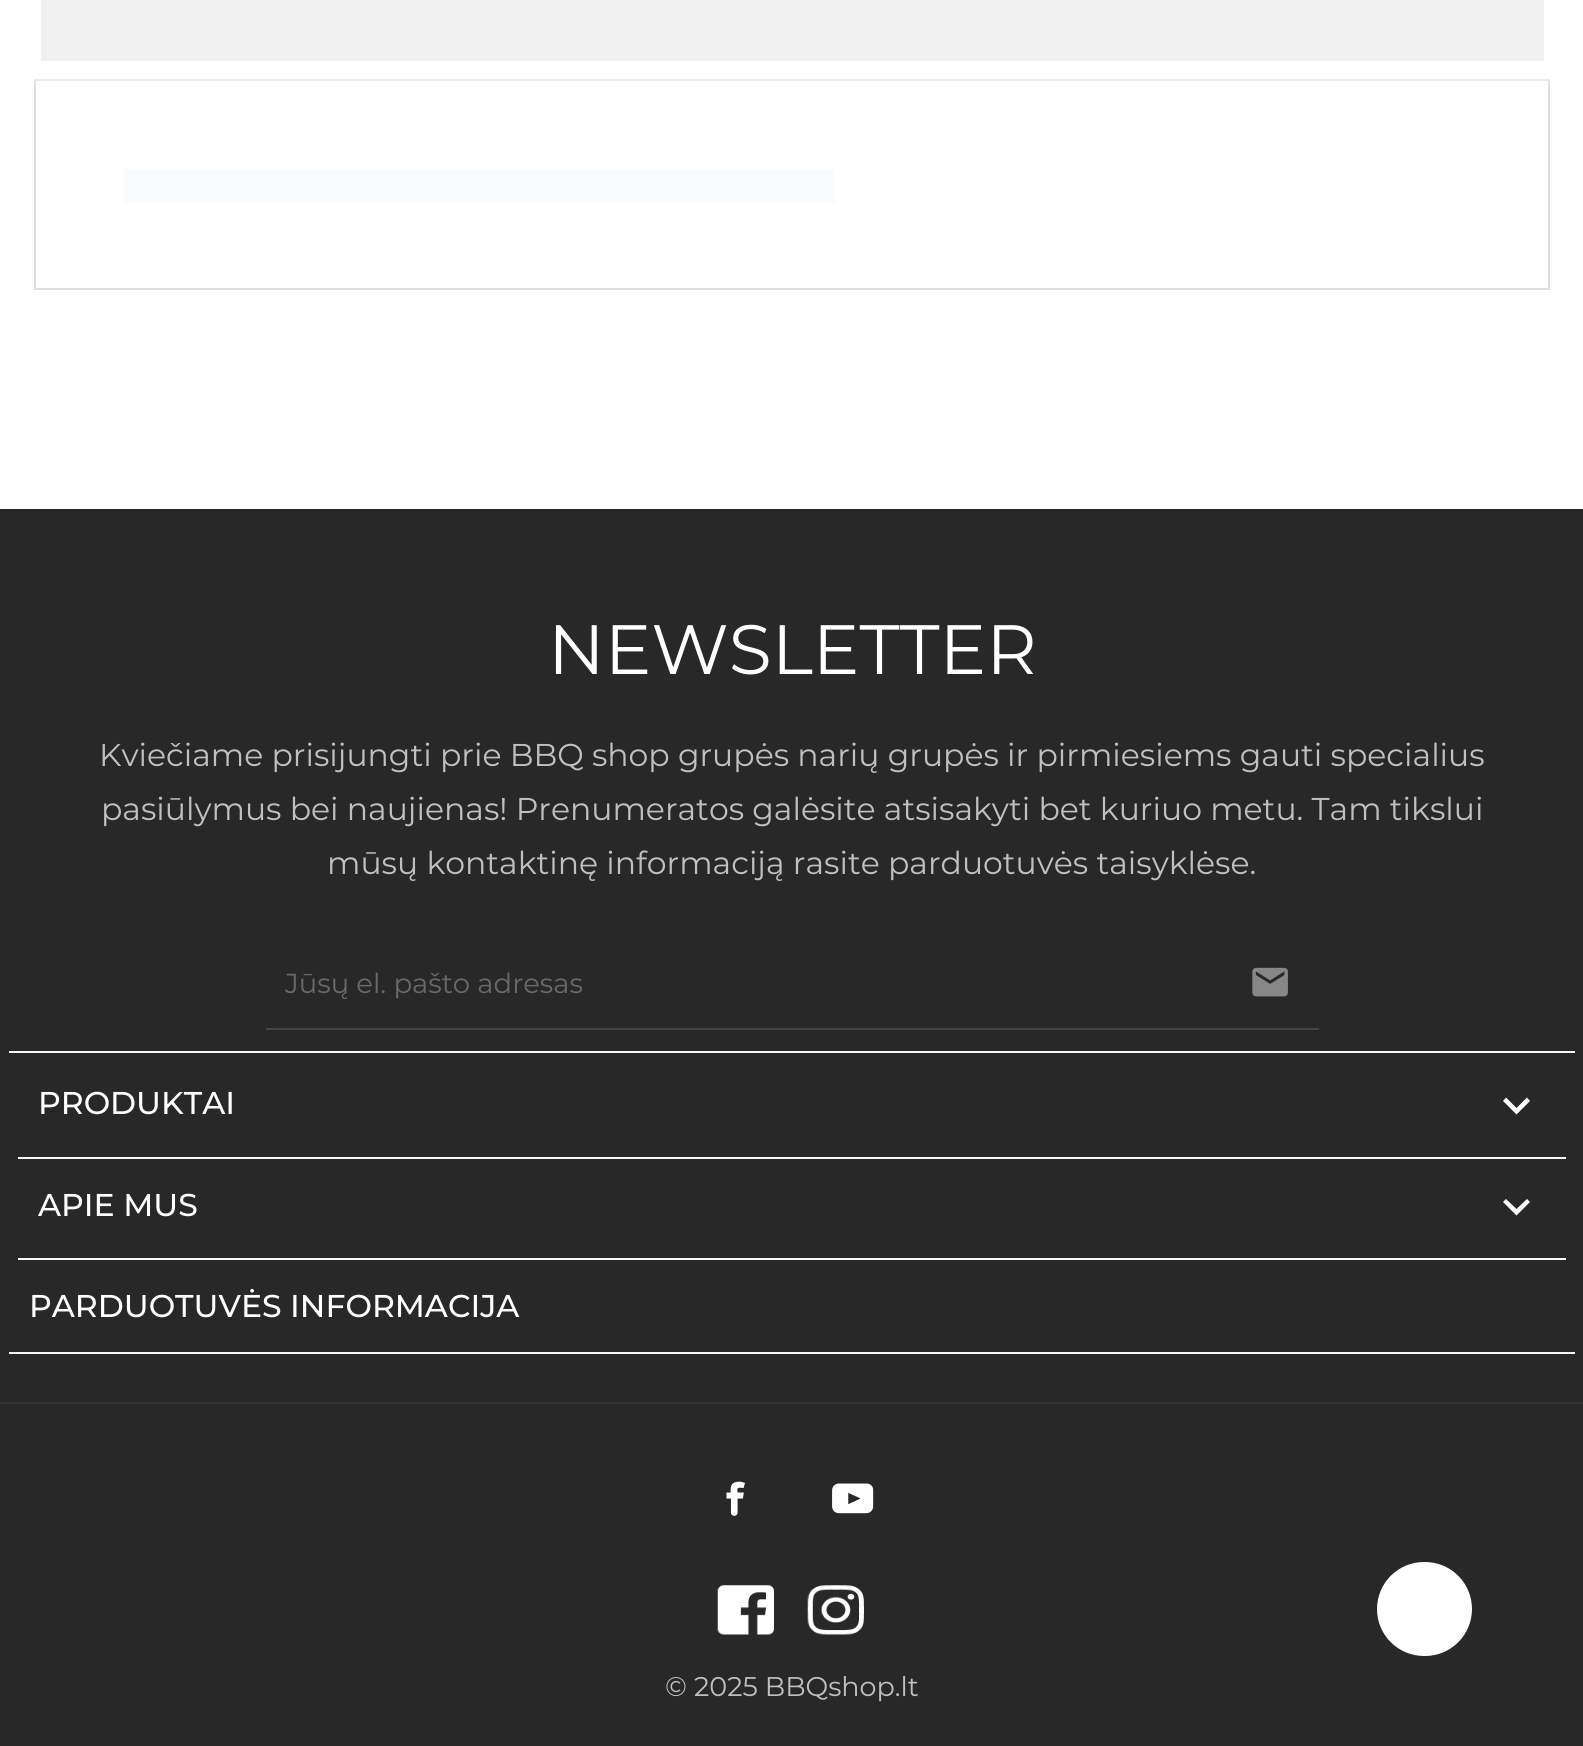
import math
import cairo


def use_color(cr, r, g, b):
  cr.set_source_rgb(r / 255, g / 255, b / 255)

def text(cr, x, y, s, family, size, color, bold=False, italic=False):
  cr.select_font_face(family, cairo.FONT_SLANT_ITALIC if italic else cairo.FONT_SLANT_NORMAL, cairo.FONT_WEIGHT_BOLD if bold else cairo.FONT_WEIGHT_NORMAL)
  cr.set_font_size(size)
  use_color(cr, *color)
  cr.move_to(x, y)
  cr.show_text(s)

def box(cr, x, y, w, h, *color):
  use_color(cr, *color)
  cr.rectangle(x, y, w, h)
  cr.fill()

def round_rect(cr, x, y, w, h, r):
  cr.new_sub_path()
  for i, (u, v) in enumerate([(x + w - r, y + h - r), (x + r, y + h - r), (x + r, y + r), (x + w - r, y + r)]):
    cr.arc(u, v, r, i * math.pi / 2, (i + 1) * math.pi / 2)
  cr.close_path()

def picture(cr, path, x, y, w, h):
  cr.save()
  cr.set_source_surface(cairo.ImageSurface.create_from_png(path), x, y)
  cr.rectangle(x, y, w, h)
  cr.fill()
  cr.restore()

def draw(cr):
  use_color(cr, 255, 255, 255)
  cr.paint()
  box(cr, 34, 79, 1516, 2, 235, 235, 235)
  box(cr, 41, 0, 1503, 61, 242, 241, 241)
  box(cr, 1548, 81, 2, 209, 224, 224, 224)
  box(cr, 34, 288, 1516, 2, 224, 224, 224)
  box(cr, 34, 81, 2, 209, 224, 224, 224)
  box(cr, 124, 169, 711, 34, 250, 251, 252)
  box(cr, 0, 509, 1583, 893, 40, 40, 40)
  box(cr, 0, 1402, 1583, 2, 51, 50, 50)
  box(cr, 9, 1051, 1566, 2, 246, 246, 246)
  box(cr, 266, 1028, 1053, 2, 69, 67, 67)
  picture(cr, "img_01.png", 1252, 967, 36, 30)
  box(cr, 18, 1157, 1548, 2, 246, 246, 246)
  use_color(cr, 255, 255, 255)
  cr.new_path()
  cr.move_to(1506, 1097.5)
  cr.line_to(1516.5, 1108)
  cr.line_to(1527, 1097.5)
  cr.line_to(1530, 1101)
  cr.line_to(1516.5, 1114.5)
  cr.line_to(1503, 1101)
  cr.close_path()
  cr.fill()
  box(cr, 18, 1258, 1548, 2, 246, 246, 246)
  use_color(cr, 255, 255, 255)
  cr.new_path()
  cr.move_to(1506, 1199)
  cr.line_to(1516.5, 1209)
  cr.line_to(1527, 1199)
  cr.line_to(1530, 1202)
  cr.line_to(1516.5, 1215.5)
  cr.line_to(1503, 1202)
  cr.close_path()
  cr.fill()
  box(cr, 9, 1352, 1566, 2, 246, 246, 246)
  box(cr, 0, 1404, 1583, 342, 40, 40, 40)
  use_color(cr, 255, 255, 255)
  round_rect(cr, 1377, 1562, 95, 94, 47)
  cr.fill()
  picture(cr, "img_02.png", 726, 1481, 19, 35)
  picture(cr, "img_03.png", 832, 1483, 42, 31)
  picture(cr, "img_04.png", 717, 1585, 57, 50)
  picture(cr, "img_05.png", 807, 1585, 57, 50)
  text(cr, 548, 674, "NEWSLETTER", "Montserrat", 69.75, (255, 255, 255))
  text(cr, 99, 766, "Kviečiame prisijungti prie BBQ shop grupės narių grupės ir pirmiesiems gauti specialius", "Montserrat", 31.5, (192, 192, 192))
  text(cr, 101, 820, "pasiūlymus bei naujienas! Prenumeratos galėsite atsisakyti bet kuriuo metu. Tam tikslui", "Montserrat", 31.5, (192, 192, 192))
  text(cr, 327, 874, "mūsų kontaktinę informaciją rasite parduotuvės taisyklėse.", "Montserrat", 31.5, (192, 192, 192))
  text(cr, 285, 993, "Jūsų el. pašto adresas", "Montserrat", 27.5, (106, 105, 103))
  text(cr, 38, 1114, "PRODUKTAI", "Montserrat Medium", 31.5, (255, 255, 255))
  text(cr, 38, 1216, "APIE MUS", "Montserrat Medium", 31.5, (255, 255, 255))
  text(cr, 29, 1317, "PARDUOTUVĖS INFORMACIJA", "Montserrat Medium", 31.5, (255, 255, 255))
  text(cr, 665, 1696, "© 2025 BBQshop.lt", "Montserrat", 27, (192, 192, 192))


surface = cairo.ImageSurface(cairo.FORMAT_RGB24, 1583, 1746)
cr = cairo.Context(surface)
options = cairo.FontOptions()
options.set_hint_metrics(cairo.HINT_METRICS_OFF)
options.set_hint_style(cairo.HINT_STYLE_NONE)
cr.set_font_options(options)
cr.set_miter_limit(4)
draw(cr)
surface.write_to_png("out.png")
